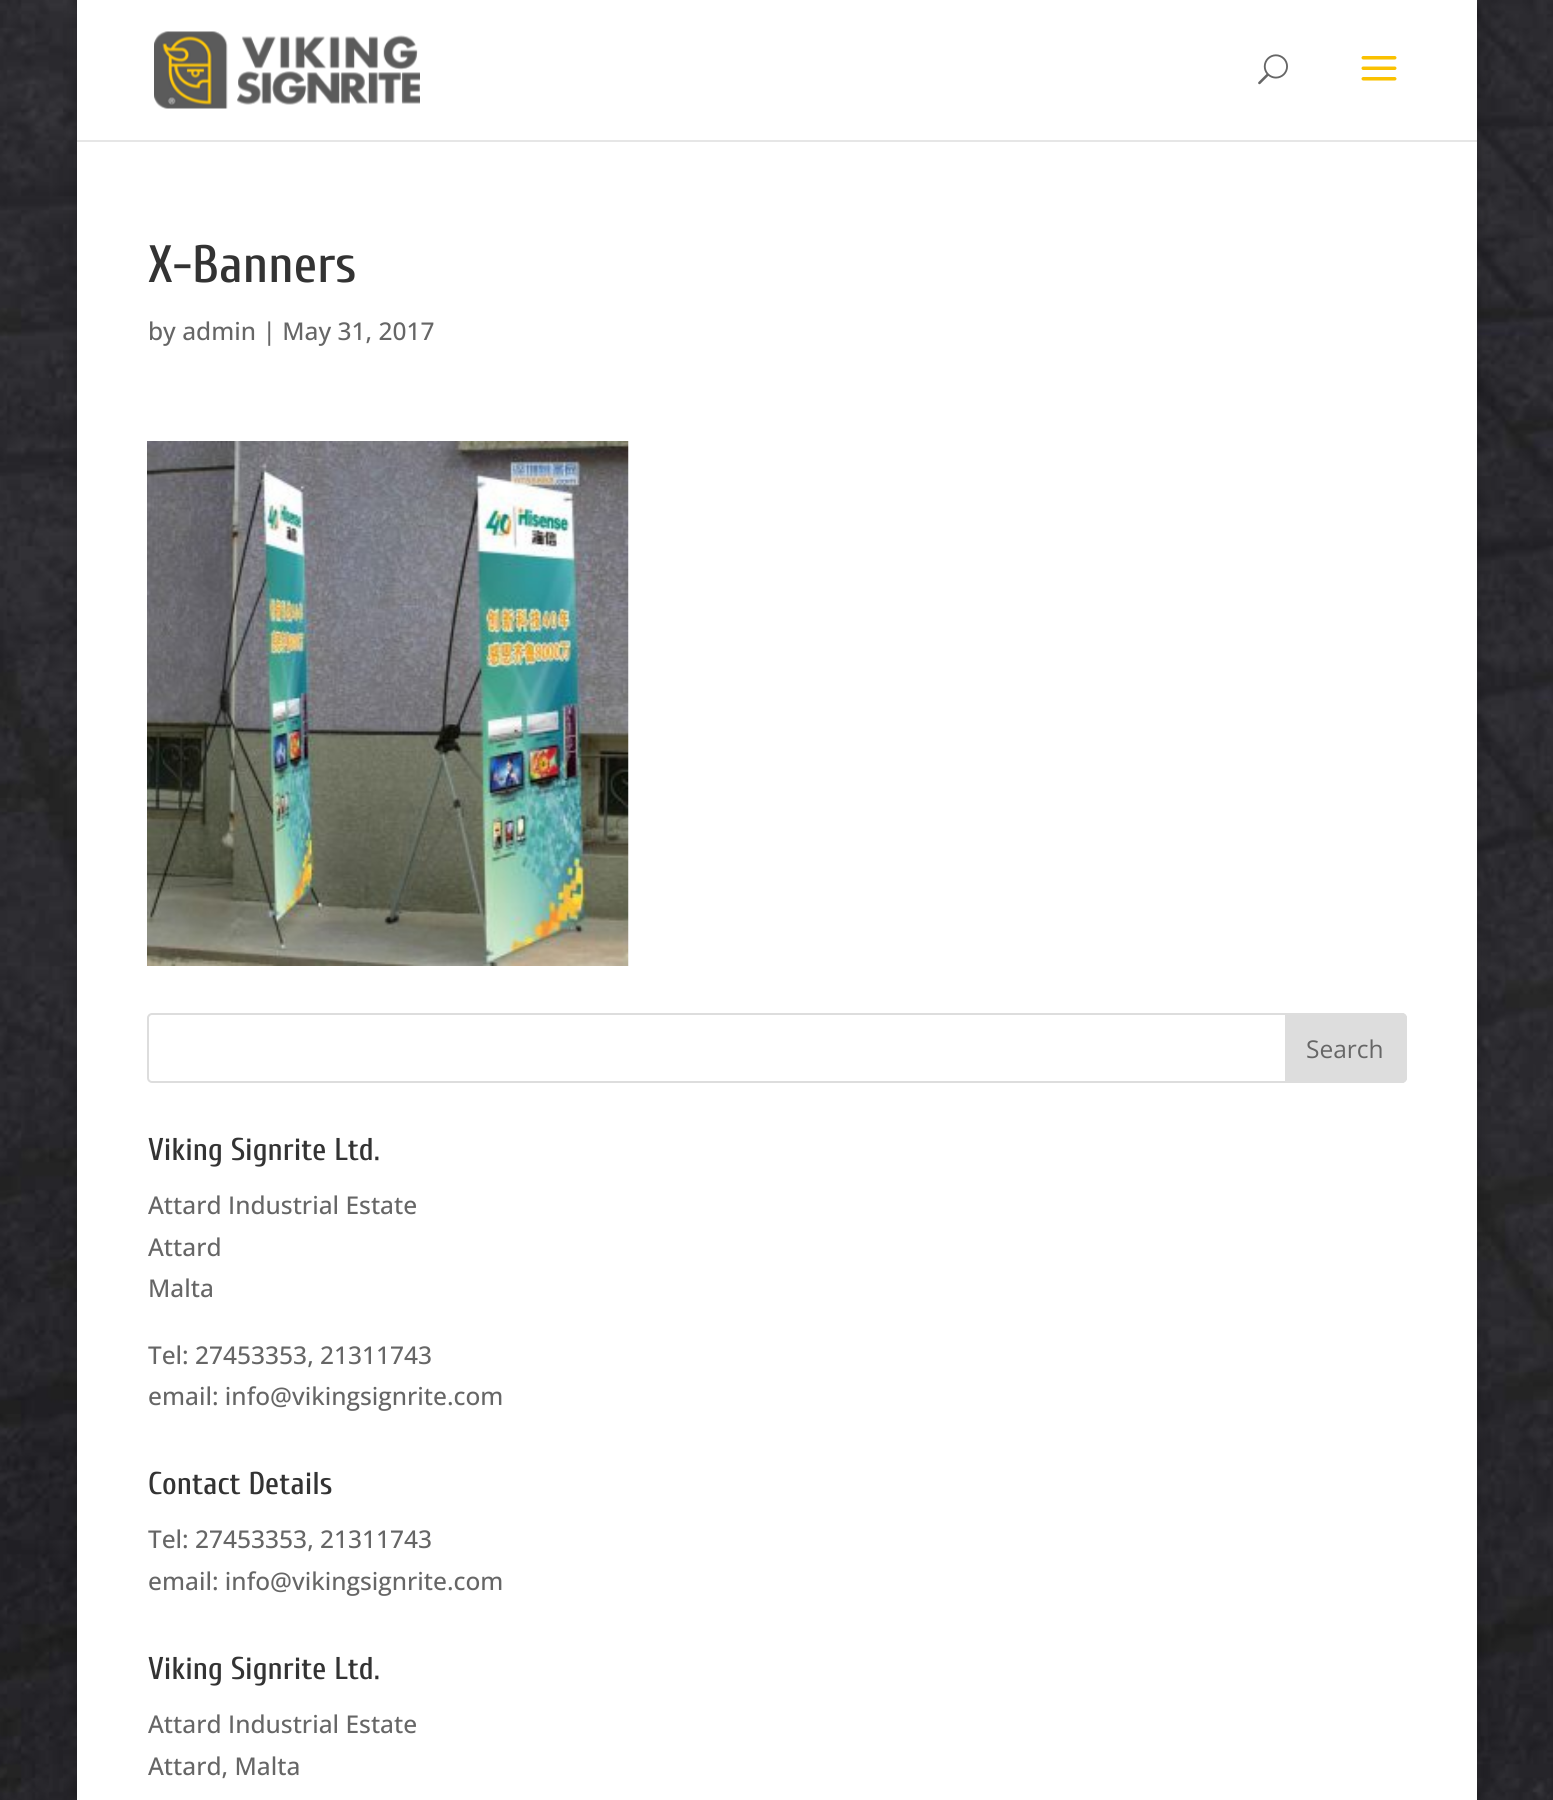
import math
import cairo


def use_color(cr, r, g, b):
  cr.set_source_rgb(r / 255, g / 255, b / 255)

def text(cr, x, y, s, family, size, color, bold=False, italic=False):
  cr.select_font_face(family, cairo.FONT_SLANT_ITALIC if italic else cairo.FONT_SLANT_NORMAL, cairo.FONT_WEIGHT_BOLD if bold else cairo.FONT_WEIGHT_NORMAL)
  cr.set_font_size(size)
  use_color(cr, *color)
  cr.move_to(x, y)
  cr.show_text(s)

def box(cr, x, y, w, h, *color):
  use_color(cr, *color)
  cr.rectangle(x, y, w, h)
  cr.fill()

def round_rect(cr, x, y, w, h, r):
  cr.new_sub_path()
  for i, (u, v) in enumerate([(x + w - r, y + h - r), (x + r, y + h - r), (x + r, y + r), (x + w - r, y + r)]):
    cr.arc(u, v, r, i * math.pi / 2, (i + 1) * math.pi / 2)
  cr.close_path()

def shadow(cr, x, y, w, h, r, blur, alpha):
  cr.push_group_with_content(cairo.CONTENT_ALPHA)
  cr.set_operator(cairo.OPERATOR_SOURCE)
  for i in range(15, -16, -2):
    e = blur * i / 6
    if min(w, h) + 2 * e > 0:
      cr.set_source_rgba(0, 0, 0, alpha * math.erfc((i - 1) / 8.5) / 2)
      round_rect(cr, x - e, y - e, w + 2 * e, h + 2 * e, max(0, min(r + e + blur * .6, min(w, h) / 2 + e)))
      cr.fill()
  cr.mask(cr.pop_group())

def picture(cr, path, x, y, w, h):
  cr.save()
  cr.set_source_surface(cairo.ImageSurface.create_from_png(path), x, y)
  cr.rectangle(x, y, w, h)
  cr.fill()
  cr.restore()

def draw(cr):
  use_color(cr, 255, 255, 255)
  cr.paint()
  picture(cr, "img_01.png", 0, 0, 1553, 1800)
  use_color(cr, 0, 0, 0)
  shadow(cr, 77, 0, 1400, 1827, 0, 9, 0.2)
  box(cr, 77, 140, 1400, 2, 230, 230, 230)
  box(cr, 77, 0, 1400, 140, 255, 255, 255)
  picture(cr, "img_02.png", 154, 31, 266, 78)
  picture(cr, "img_03.png", 1258, 54, 30, 31)
  picture(cr, "img_04.png", 1361, 56, 36, 25)
  box(cr, 77, 142, 1400, 1658, 255, 255, 255)
  picture(cr, "img_05.png", 147, 441, 482, 525)
  round_rect(cr, 148, 1014, 1258, 68, 4)
  use_color(cr, 221, 221, 221)
  cr.stroke()
  cr.new_path()
  cr.move_to(1286, 1014)
  cr.line_to(1402, 1014)
  cr.curve_to(1404, 1014, 1406, 1016, 1406, 1018)
  cr.line_to(1406, 1078)
  cr.curve_to(1406, 1080, 1404, 1082, 1402, 1082)
  cr.line_to(1286, 1082)
  cr.close_path()
  cr.fill_preserve()
  cr.stroke()
  text(cr, 148, 282, "X-Banners", "Cuprum Medium", 52.5, (51, 51, 51))
  text(cr, 148, 340, "by admin | May 31, 2017", "Open Sans Medium", 24.5, (102, 102, 102))
  text(cr, 1306, 1058, "Search", "Open Sans", 24.5, (102, 102, 102))
  text(cr, 148, 1160, "Viking Signrite Ltd.", "Cuprum Medium", 31.5, (51, 51, 51))
  text(cr, 148, 1214, "Attard Industrial Estate", "Open Sans Medium", 24.5, (102, 102, 102))
  text(cr, 148, 1256, "Attard", "Open Sans Medium", 24.5, (102, 102, 102))
  text(cr, 148, 1297, "Malta", "Open Sans Medium", 24.5, (102, 102, 102))
  text(cr, 148, 1364, "Tel: 27453353, 21311743", "Open Sans Medium", 24.5, (102, 102, 102))
  text(cr, 148, 1405, "email: info@vikingsignrite.com", "Open Sans Medium", 24.5, (102, 102, 102))
  text(cr, 148, 1494, "Contact Details", "Cuprum Medium", 31.5, (51, 51, 51))
  text(cr, 148, 1548, "Tel: 27453353, 21311743", "Open Sans Medium", 24.5, (102, 102, 102))
  text(cr, 148, 1590, "email: info@vikingsignrite.com", "Open Sans Medium", 24.5, (102, 102, 102))
  text(cr, 148, 1679, "Viking Signrite Ltd.", "Cuprum Medium", 31.5, (51, 51, 51))
  text(cr, 148, 1733, "Attard Industrial Estate", "Open Sans Medium", 24.5, (102, 102, 102))
  text(cr, 148, 1775, "Attard, Malta", "Open Sans Medium", 24.5, (102, 102, 102))


surface = cairo.ImageSurface(cairo.FORMAT_RGB24, 1553, 1800)
cr = cairo.Context(surface)
options = cairo.FontOptions()
options.set_hint_metrics(cairo.HINT_METRICS_OFF)
options.set_hint_style(cairo.HINT_STYLE_NONE)
cr.set_font_options(options)
cr.set_miter_limit(4)
draw(cr)
surface.write_to_png("out.png")
